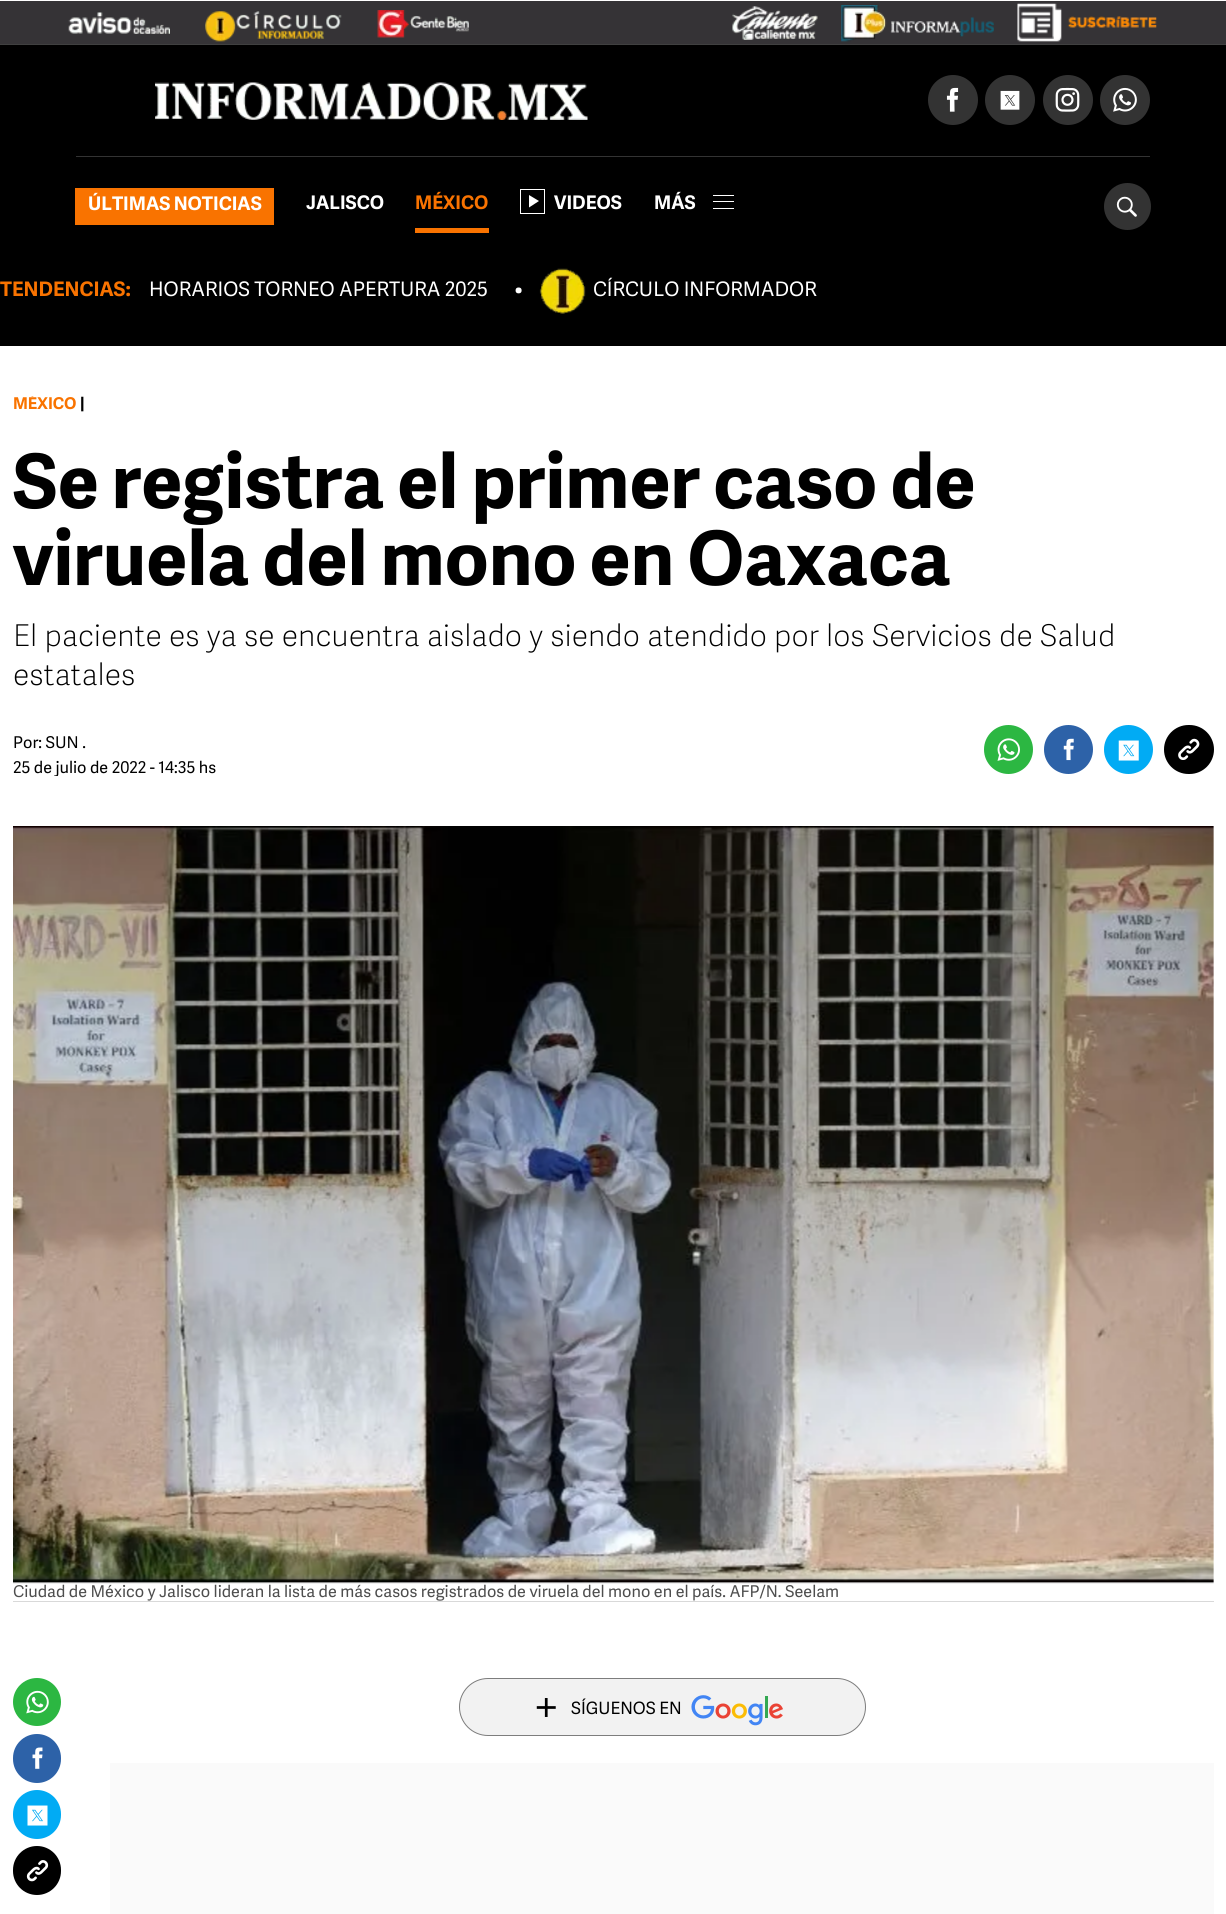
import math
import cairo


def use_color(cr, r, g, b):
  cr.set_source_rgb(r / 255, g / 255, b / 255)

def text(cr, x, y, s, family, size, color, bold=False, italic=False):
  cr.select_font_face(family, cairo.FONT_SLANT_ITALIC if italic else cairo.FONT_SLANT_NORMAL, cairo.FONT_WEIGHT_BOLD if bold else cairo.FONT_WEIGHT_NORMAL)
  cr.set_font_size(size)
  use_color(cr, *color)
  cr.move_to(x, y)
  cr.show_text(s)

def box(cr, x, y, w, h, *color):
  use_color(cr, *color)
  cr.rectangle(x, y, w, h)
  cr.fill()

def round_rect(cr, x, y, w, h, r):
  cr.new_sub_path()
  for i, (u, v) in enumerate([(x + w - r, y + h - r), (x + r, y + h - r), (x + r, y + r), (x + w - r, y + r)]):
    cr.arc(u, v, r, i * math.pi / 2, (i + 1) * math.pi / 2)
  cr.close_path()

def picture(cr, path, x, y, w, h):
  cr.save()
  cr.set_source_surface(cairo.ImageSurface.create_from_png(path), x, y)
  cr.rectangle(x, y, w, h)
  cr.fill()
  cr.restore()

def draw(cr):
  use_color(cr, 255, 255, 255)
  cr.paint()
  box(cr, 0, 1, 1226, 43, 53, 51, 54)
  box(cr, 0, 44, 1226, 1, 64, 64, 64)
  picture(cr, "img_01.png", 68, 12, 102, 22)
  picture(cr, "img_02.png", 205, 11, 137, 31)
  picture(cr, "img_03.png", 377, 10, 92, 28)
  picture(cr, "img_04.png", 732, 6, 86, 34)
  picture(cr, "img_05.png", 841, 5, 153, 37)
  picture(cr, "img_06.png", 1017, 3, 140, 39)
  box(cr, 0, 45, 1226, 301, 0, 0, 0)
  picture(cr, "img_07.png", 155, 82, 433, 38)
  use_color(cr, 51, 51, 51)
  cr.arc(953, 100, 25, 0, 2 * math.pi)
  cr.fill()
  picture(cr, "img_08.png", 946, 87, 13, 25)
  cr.arc(1010, 100, 25, 0, 2 * math.pi)
  cr.fill()
  picture(cr, "img_09.png", 1000, 90, 20, 20)
  cr.arc(1068, 100, 25, 0, 2 * math.pi)
  cr.fill()
  picture(cr, "img_10.png", 1055, 87, 25, 25)
  cr.arc(1125, 100, 25, 0, 2 * math.pi)
  cr.fill()
  picture(cr, "img_11.png", 1113, 87, 24, 25)
  box(cr, 76, 156, 1074, 1, 51, 51, 51)
  box(cr, 75, 188, 199, 37, 249, 115, 0)
  box(cr, 415, 228, 74, 5, 249, 115, 0)
  cr.rectangle(520.5, 189.5, 24, 24)
  use_color(cr, 255, 255, 255)
  cr.set_line_width(1)
  cr.stroke()
  cr.new_path()
  cr.move_to(529, 207.5)
  cr.line_to(529, 195)
  cr.line_to(539, 201)
  cr.close_path()
  cr.fill()
  box(cr, 713, 201, 21, 1, 255, 255, 255)
  box(cr, 713, 195, 21, 1, 255, 255, 255)
  box(cr, 713, 208, 21, 1, 255, 255, 255)
  use_color(cr, 51, 51, 51)
  cr.arc(1127.5, 206.5, 23.5, 0, 2 * math.pi)
  cr.fill()
  picture(cr, "img_12.png", 1116, 196, 21, 21)
  picture(cr, "img_13.png", 539, 268, 47, 46)
  use_color(cr, 44, 183, 66)
  cr.arc(1008.5, 749.5, 24.5, 0, 2 * math.pi)
  cr.fill()
  picture(cr, "img_14.png", 997, 738, 23, 23)
  use_color(cr, 45, 98, 168)
  cr.arc(1068.5, 749.5, 24.5, 0, 2 * math.pi)
  cr.fill()
  picture(cr, "img_15.png", 1063, 738, 11, 23)
  use_color(cr, 1, 171, 244)
  cr.arc(1128.5, 749.5, 24.5, 0, 2 * math.pi)
  cr.fill()
  picture(cr, "img_16.png", 1118, 740, 21, 21)
  use_color(cr, 0, 0, 0)
  round_rect(cr, 1164, 725, 50, 49, 24.5)
  cr.fill()
  picture(cr, "img_17.png", 1178, 738, 22, 22)
  box(cr, 13, 1601, 1201, 1, 217, 217, 217)
  picture(cr, "img_18.png", 13, 826, 1201, 758)
  use_color(cr, 44, 183, 66)
  cr.arc(37, 1702, 24, 0, 2 * math.pi)
  cr.fill()
  picture(cr, "img_19.png", 26, 1690, 23, 24)
  use_color(cr, 45, 98, 168)
  round_rect(cr, 13, 1734, 48, 49, 24)
  cr.fill()
  picture(cr, "img_20.png", 32, 1747, 11, 22)
  use_color(cr, 1, 171, 244)
  round_rect(cr, 13, 1790, 48, 49, 24)
  cr.fill()
  picture(cr, "img_21.png", 27, 1805, 21, 21)
  use_color(cr, 0, 0, 0)
  round_rect(cr, 13, 1846, 48, 49, 24)
  cr.fill()
  picture(cr, "img_22.png", 26, 1860, 23, 22)
  use_color(cr, 242, 242, 242)
  round_rect(cr, 459.5, 1678.5, 406, 57, 28.5)
  cr.fill_preserve()
  use_color(cr, 125, 125, 125)
  cr.stroke()
  picture(cr, "img_23.png", 536, 1698, 20, 19)
  picture(cr, "img_24.png", 691, 1695, 92, 31)
  box(cr, 110, 1763, 1104, 151, 250, 250, 250)
  text(cr, 88, 210, "ÚLTIMAS NOTICIAS", "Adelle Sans", 18.75, (255, 255, 255), bold=True)
  text(cr, 306, 209, "JALISCO", "Adelle Sans", 18.75, (255, 255, 255), bold=True)
  text(cr, 415, 209, "MÉXICO", "Adelle Sans", 18.75, (249, 115, 0), bold=True)
  text(cr, 554, 209, "VIDEOS", "Adelle Sans", 18.75, (255, 255, 255), bold=True)
  text(cr, 654, 209, "MÁS", "Adelle Sans", 18.75, (255, 255, 255), bold=True)
  text(cr, 0, 296, "TENDENCIAS:", "Adelle Sans", 20, (249, 115, 0), bold=True)
  text(cr, 149, 296, "HORARIOS TORNEO APERTURA 2025", "Adelle Sans", 20, (255, 255, 255))
  text(cr, 514, 296, "•", "Adelle Sans", 20, (255, 255, 255), bold=True)
  text(cr, 593, 296, "CÍRCULO INFORMADOR", "Adelle Sans", 20, (255, 255, 255))
  cr.save()
  cr.rectangle(13, 396, 1201, 54)
  cr.clip()
  text(cr, 13, 409, "MÉXICO", "Adelle Sans", 16.25, (249, 115, 0), bold=True)
  cr.restore()
  text(cr, 80, 409, "|", "Adelle Sans", 16.25, (0, 0, 0), bold=True)
  text(cr, 13, 508, "Se registra el primer caso de", "Adelle Sans", 75, (0, 0, 0), bold=True)
  text(cr, 13, 585, "viruela del mono en Oaxaca", "Adelle Sans", 75, (0, 0, 0), bold=True)
  text(cr, 13, 646, "El paciente es ya se encuentra aislado y siendo atendido por los Servicios de Salud", "Adelle Sans Thin", 30, (0, 0, 0))
  text(cr, 13, 685, "estatales", "Adelle Sans Thin", 30, (0, 0, 0))
  text(cr, 13, 748, "Por: SUN .", "Adelle Sans", 16.25, (0, 0, 0))
  cr.save()
  cr.rectangle(13, 735, 203, 41)
  cr.clip()
  text(cr, 13, 773, "25 de julio de 2022 - 14:35 hs", "Adelle Sans", 16.25, (0, 0, 0))
  cr.restore()
  text(cr, 13, 1597, "Ciudad de México y Jalisco lideran la lista de más casos registrados de viruela del mono en el país. AFP/N. Seelam", "Adelle Sans", 16.25, (78, 78, 78))
  text(cr, 571, 1714, "SÍGUENOS EN", "Adelle Sans", 17, (0, 0, 0))


surface = cairo.ImageSurface(cairo.FORMAT_RGB24, 1226, 1914)
cr = cairo.Context(surface)
options = cairo.FontOptions()
options.set_hint_metrics(cairo.HINT_METRICS_OFF)
options.set_hint_style(cairo.HINT_STYLE_NONE)
cr.set_font_options(options)
cr.set_miter_limit(4)
draw(cr)
surface.write_to_png("out.png")
